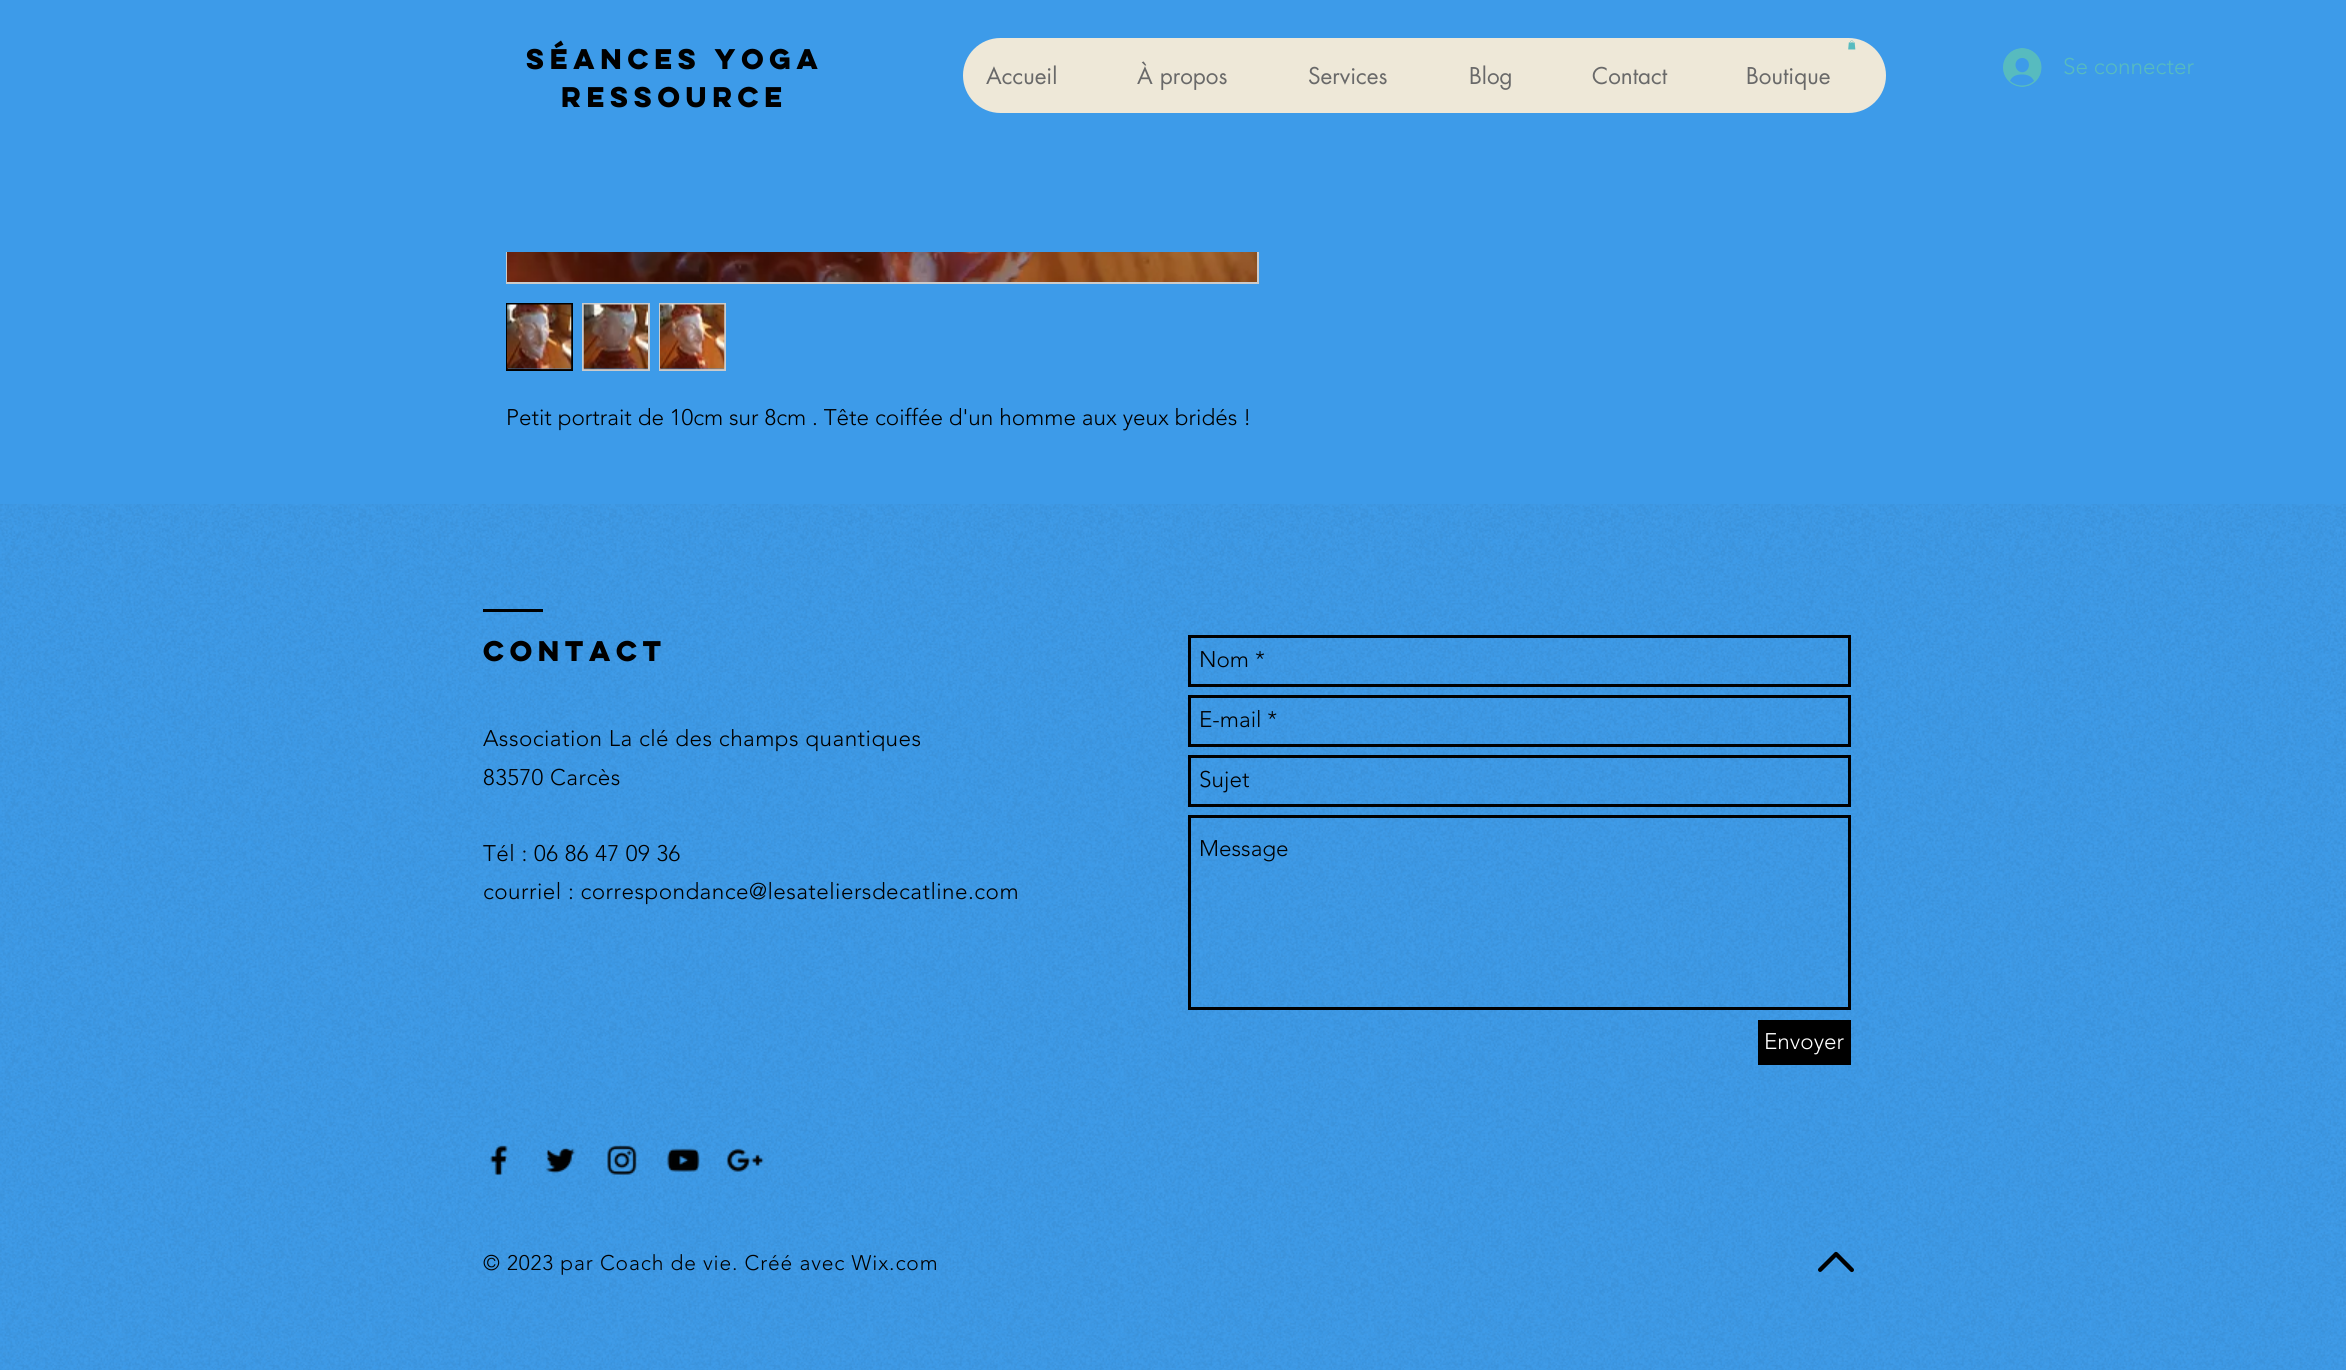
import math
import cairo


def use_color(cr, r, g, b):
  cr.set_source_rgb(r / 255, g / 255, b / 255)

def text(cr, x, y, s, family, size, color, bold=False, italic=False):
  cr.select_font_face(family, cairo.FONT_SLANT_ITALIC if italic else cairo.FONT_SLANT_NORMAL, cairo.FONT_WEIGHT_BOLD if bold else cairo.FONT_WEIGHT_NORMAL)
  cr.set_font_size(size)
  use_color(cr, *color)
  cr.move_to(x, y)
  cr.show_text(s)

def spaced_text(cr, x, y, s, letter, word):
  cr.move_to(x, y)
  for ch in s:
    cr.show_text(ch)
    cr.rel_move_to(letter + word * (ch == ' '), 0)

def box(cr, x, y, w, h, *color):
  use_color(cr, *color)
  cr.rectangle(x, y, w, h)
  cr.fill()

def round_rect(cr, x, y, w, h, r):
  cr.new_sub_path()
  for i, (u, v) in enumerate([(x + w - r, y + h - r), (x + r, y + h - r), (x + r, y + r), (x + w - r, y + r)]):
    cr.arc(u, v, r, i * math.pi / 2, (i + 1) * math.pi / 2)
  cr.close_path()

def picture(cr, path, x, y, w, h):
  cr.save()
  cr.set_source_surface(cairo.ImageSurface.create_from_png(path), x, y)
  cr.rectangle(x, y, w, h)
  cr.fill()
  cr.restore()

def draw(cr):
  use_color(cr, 61, 155, 233)
  cr.paint()
  cr.rectangle(507, -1, 751, 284)
  use_color(cr, 204, 204, 204)
  cr.stroke()
  box(cr, 506, 0, 753, 252, 61, 155, 233)
  use_color(cr, 238, 232, 216)
  round_rect(cr, 963, 38, 923, 75, 37.5)
  cr.fill()
  picture(cr, "img_01.png", 1848, 40, 8, 10)
  picture(cr, "img_02.png", 2003, 48, 39, 39)
  picture(cr, "img_03.png", 507, 252, 750, 30)
  cr.rectangle(507, 304, 65, 66)
  use_color(cr, 0, 0, 0)
  cr.stroke()
  picture(cr, "img_04.png", 507, 304, 65, 66)
  cr.rectangle(583, 304, 66, 66)
  use_color(cr, 204, 204, 204)
  cr.stroke()
  picture(cr, "img_05.png", 583, 304, 65, 66)
  cr.rectangle(660, 304, 65, 66)
  cr.stroke()
  picture(cr, "img_06.png", 660, 304, 65, 66)
  picture(cr, "img_07.png", 0, 504, 2346, 866)
  box(cr, 483, 609, 60, 3, 0, 0, 0)
  cr.rectangle(1189.5, 636.5, 660, 49)
  cr.set_line_width(3)
  cr.stroke()
  cr.rectangle(1189.5, 696.5, 660, 49)
  cr.stroke()
  cr.rectangle(1189.5, 756.5, 660, 49)
  cr.stroke()
  cr.rectangle(1189.5, 816.5, 660, 192)
  cr.stroke()
  box(cr, 1758, 1020, 93, 45, 0, 0, 0)
  picture(cr, "img_08.png", 490, 1145, 18, 31)
  picture(cr, "img_09.png", 546, 1147, 29, 27)
  picture(cr, "img_10.png", 607, 1145, 30, 30)
  picture(cr, "img_11.png", 667, 1148, 33, 24)
  picture(cr, "img_12.png", 726, 1148, 38, 24)
  picture(cr, "img_13.png", 1818, 1251, 36, 22)
  text(cr, 526, 69, "Séances yoga", "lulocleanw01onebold", 25.5, (0, 0, 0), bold=True)
  text(cr, 561, 107, "ressource", "lulocleanw01onebold", 25.5, (0, 0, 0), bold=True)
  text(cr, 986, 84, "Accueil", "futura", 22.5, (105, 105, 105))
  text(cr, 1137, 84, "À propos", "futura", 22.5, (105, 105, 105))
  text(cr, 1308, 84, "Services", "futura", 22.5, (105, 105, 105))
  text(cr, 1469, 84, "Blog", "futura", 22.5, (105, 105, 105))
  text(cr, 1592, 84, "Contact", "futura", 22.5, (105, 105, 105))
  text(cr, 1746, 84, "Boutique", "futura", 22.5, (105, 105, 105))
  text(cr, 2063, 74, "Se connecter", "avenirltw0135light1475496 Light", 22.5, (87, 187, 191))
  text(cr, 506, 425, "Petit portrait de 10cm sur 8cm . Tête coiffée d'un homme aux yeux bridés !", "avenirltw0135light1475496 Light", 22.5, (0, 0, 0))
  text(cr, 483, 661, "Contact", "lulocleanw01onebold", 25.5, (0, 0, 0), bold=True)
  text(cr, 1199, 667, "Nom *", "avenirltw0135light1475496 Light", 22.5, (0, 0, 0))
  text(cr, 1199, 727, "E-mail *", "avenirltw0135light1475496 Light", 22.5, (0, 0, 0))
  text(cr, 1199, 787, "Sujet", "avenirltw0135light1475496 Light", 22.5, (0, 0, 0))
  text(cr, 1199, 856, "Message", "avenirltw0135light1475496 Light", 22.5, (0, 0, 0))
  text(cr, 1764, 1049, "Envoyer", "avenirltw0135light1475496 Light", 22.5, (255, 255, 255))
  use_color(cr, 0, 0, 0)
  spaced_text(cr, 483, 746, "Association La clé des champs quantiques", 0.45, 0)
  spaced_text(cr, 483, 785, "83570 Carcès", 0.45, 0)
  spaced_text(cr, 483, 861, "Tél : 06 86 47 09 36", 0.45, 0)
  spaced_text(cr, 483, 899, "courriel : correspondance@lesateliersdecatline.com", 0.45, 0)
  cr.set_font_size(21)
  spaced_text(cr, 483, 1270, "© 2023 par Coach de vie. Créé avec Wix.com", 0.85, 0)


surface = cairo.ImageSurface(cairo.FORMAT_RGB24, 2346, 1370)
cr = cairo.Context(surface)
options = cairo.FontOptions()
options.set_hint_metrics(cairo.HINT_METRICS_OFF)
options.set_hint_style(cairo.HINT_STYLE_NONE)
cr.set_font_options(options)
cr.set_miter_limit(4)
draw(cr)
surface.write_to_png("out.png")
